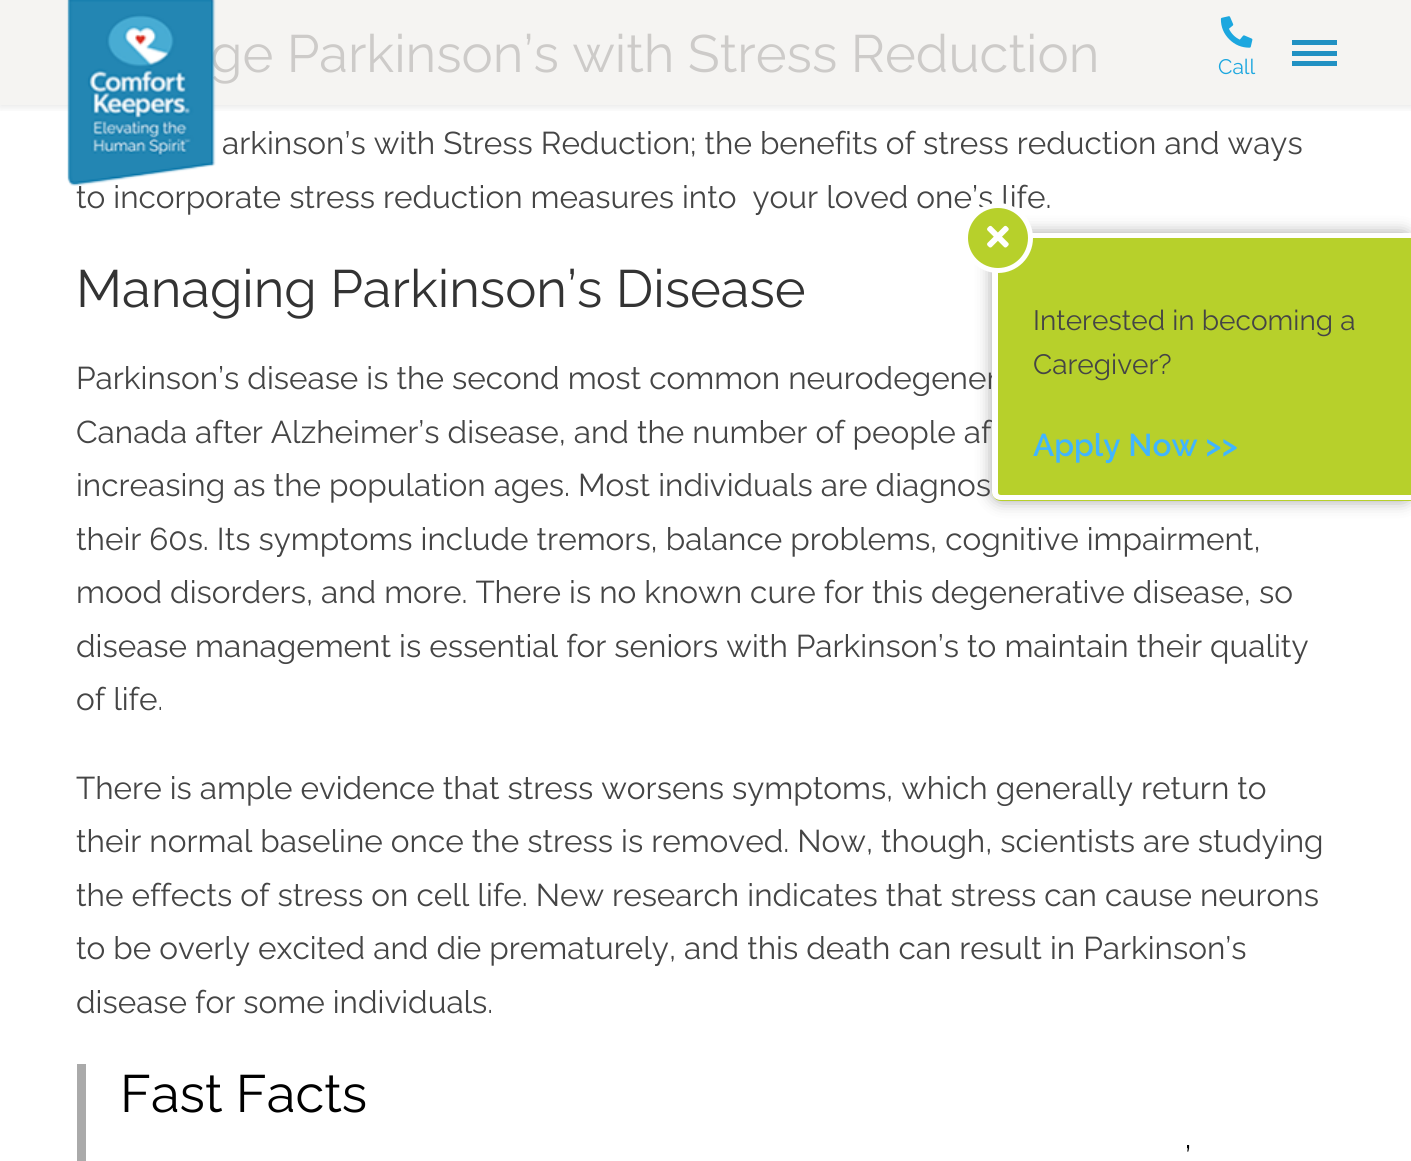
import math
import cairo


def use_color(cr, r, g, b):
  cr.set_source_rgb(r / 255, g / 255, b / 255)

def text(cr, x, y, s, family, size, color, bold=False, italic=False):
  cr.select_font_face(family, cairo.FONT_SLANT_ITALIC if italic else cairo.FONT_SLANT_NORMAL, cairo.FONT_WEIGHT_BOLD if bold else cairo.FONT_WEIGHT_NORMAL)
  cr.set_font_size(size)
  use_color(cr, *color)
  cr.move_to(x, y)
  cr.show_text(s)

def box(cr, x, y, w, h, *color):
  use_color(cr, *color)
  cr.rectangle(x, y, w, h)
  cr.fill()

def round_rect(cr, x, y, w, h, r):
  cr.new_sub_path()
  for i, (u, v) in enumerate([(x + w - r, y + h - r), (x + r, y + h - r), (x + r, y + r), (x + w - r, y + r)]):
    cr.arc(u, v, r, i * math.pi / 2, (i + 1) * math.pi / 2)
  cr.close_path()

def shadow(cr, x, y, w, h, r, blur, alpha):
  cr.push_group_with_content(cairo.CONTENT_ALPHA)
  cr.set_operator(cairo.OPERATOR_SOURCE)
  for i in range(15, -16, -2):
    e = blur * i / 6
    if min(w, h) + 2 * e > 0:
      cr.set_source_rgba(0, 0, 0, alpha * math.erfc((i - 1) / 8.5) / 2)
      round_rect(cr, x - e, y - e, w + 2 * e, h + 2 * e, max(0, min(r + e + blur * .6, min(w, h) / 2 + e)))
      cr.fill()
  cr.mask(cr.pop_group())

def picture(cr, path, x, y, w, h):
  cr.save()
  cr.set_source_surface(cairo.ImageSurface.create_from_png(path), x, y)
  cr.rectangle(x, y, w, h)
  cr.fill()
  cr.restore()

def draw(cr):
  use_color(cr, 255, 255, 255)
  cr.paint()
  box(cr, 0, 0, 1411, 105, 245, 244, 242)
  box(cr, 77, 1064, 9, 97, 170, 170, 170)
  cr.save()
  cr.rectangle(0, 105, 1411, 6)
  cr.clip()
  use_color(cr, 0, 0, 0)
  shadow(cr, 0, 2, 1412, 105, 0, 4.5, 0.1)
  cr.restore()
  picture(cr, "img_02.png", 1220, 16, 33, 32)
  box(cr, 1292, 40, 45, 5, 33, 145, 195)
  box(cr, 1292, 51, 45, 5, 33, 145, 195)
  box(cr, 1292, 61, 45, 5, 33, 145, 195)
  use_color(cr, 0, 0, 0)
  shadow(cr, 992, 233, 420, 268, 9, 8, 0.35)
  text(cr, 210, 72, "ge Parkinson’s with Stress Reduction", "Raleway", 52.5, (205, 203, 201))
  text(cr, 222, 154, "arkinson’s with Stress Reduction; the benefits of stress reduction and ways", "Raleway", 31.5, (69, 69, 69))
  text(cr, 76, 208, "to incorporate stress reduction measures into  your loved one’s life.", "Raleway", 31.5, (69, 69, 69))
  text(cr, 76, 307, "Managing Parkinson’s Disease", "Raleway", 52.5, (51, 51, 51))
  text(cr, 76, 389, "Parkinson’s disease is the second most common neurodegener", "Raleway", 31.5, (69, 69, 69))
  text(cr, 76, 443, "Canada after Alzheimer’s disease, and the number of people af", "Raleway", 31.5, (69, 69, 69))
  text(cr, 76, 496, "increasing as the population ages. Most individuals are diagnos", "Raleway", 31.5, (69, 69, 69))
  text(cr, 76, 550, "their 60s. Its symptoms include tremors, balance problems, cognitive impairment,", "Raleway", 31.5, (69, 69, 69))
  text(cr, 76, 603, "mood disorders, and more. There is no known cure for this degenerative disease, so", "Raleway", 31.5, (69, 69, 69))
  text(cr, 76, 657, "disease management is essential for seniors with Parkinson’s to maintain their quality", "Raleway", 31.5, (69, 69, 69))
  text(cr, 76, 710, "of life.", "Raleway", 31.5, (69, 69, 69))
  text(cr, 76, 799, "There is ample evidence that stress worsens symptoms, which generally return to", "Raleway", 31.5, (69, 69, 69))
  text(cr, 76, 852, "their normal baseline once the stress is removed. Now, though, scientists are studying", "Raleway", 31.5, (69, 69, 69))
  text(cr, 76, 906, "the effects of stress on cell life. New research indicates that stress can cause neurons", "Raleway", 31.5, (69, 69, 69))
  text(cr, 76, 959, "to be overly excited and die prematurely, and this death can result in Parkinson’s", "Raleway", 31.5, (69, 69, 69))
  text(cr, 76, 1013, "disease for some individuals.", "Raleway", 31.5, (69, 69, 69))
  text(cr, 120, 1112, "Fast Facts", "Raleway", 52.5, (0, 0, 0))
  text(cr, 1185, 1168, "’", "Raleway", 31.5, (0, 0, 0))
  picture(cr, "img_01.png", 67, 0, 149, 186)
  text(cr, 1218, 74, "Call", "Raleway", 21, (28, 167, 223))
  use_color(cr, 183, 208, 43)
  cr.new_path()
  cr.move_to(1001, 233)
  cr.line_to(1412, 233)
  cr.line_to(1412, 501)
  cr.line_to(1001, 501)
  cr.curve_to(996, 501, 992, 497, 992, 492)
  cr.line_to(992, 242)
  cr.curve_to(992, 237, 996, 233, 1001, 233)
  cr.close_path()
  cr.fill()
  use_color(cr, 255, 255, 255)
  cr.set_fill_rule(cairo.FILL_RULE_EVEN_ODD)
  cr.new_path()
  cr.move_to(1001, 233)
  cr.line_to(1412, 233)
  cr.line_to(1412, 500)
  cr.line_to(1001, 500)
  cr.curve_to(996, 500, 992, 497, 992, 492)
  cr.line_to(992, 242)
  cr.curve_to(992, 237, 996, 233, 1001, 233)
  cr.close_path()
  cr.move_to(1001, 238)
  cr.line_to(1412, 238)
  cr.line_to(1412, 495)
  cr.line_to(1001, 495)
  cr.curve_to(999, 495, 998, 494, 998, 492)
  cr.line_to(998, 242)
  cr.curve_to(998, 240, 999, 238, 1001, 238)
  cr.close_path()
  cr.fill()
  use_color(cr, 183, 208, 43)
  cr.arc(998, 238, 32.5, 0, 2 * math.pi)
  cr.fill_preserve()
  use_color(cr, 255, 255, 255)
  cr.set_line_width(5)
  cr.stroke()
  picture(cr, "img_03.png", 987, 225, 22, 23)
  text(cr, 1033, 330, "Interested in becoming a", "Raleway", 28, (69, 69, 69))
  text(cr, 1033, 374, "Caregiver?", "Raleway", 28, (69, 69, 69))
  text(cr, 1033, 456, "Apply Now >>", "Raleway SemiBold", 31.5, (65, 181, 255))


surface = cairo.ImageSurface(cairo.FORMAT_RGB24, 1411, 1161)
cr = cairo.Context(surface)
options = cairo.FontOptions()
options.set_hint_metrics(cairo.HINT_METRICS_OFF)
options.set_hint_style(cairo.HINT_STYLE_NONE)
cr.set_font_options(options)
cr.set_miter_limit(4)
draw(cr)
surface.write_to_png("out.png")
